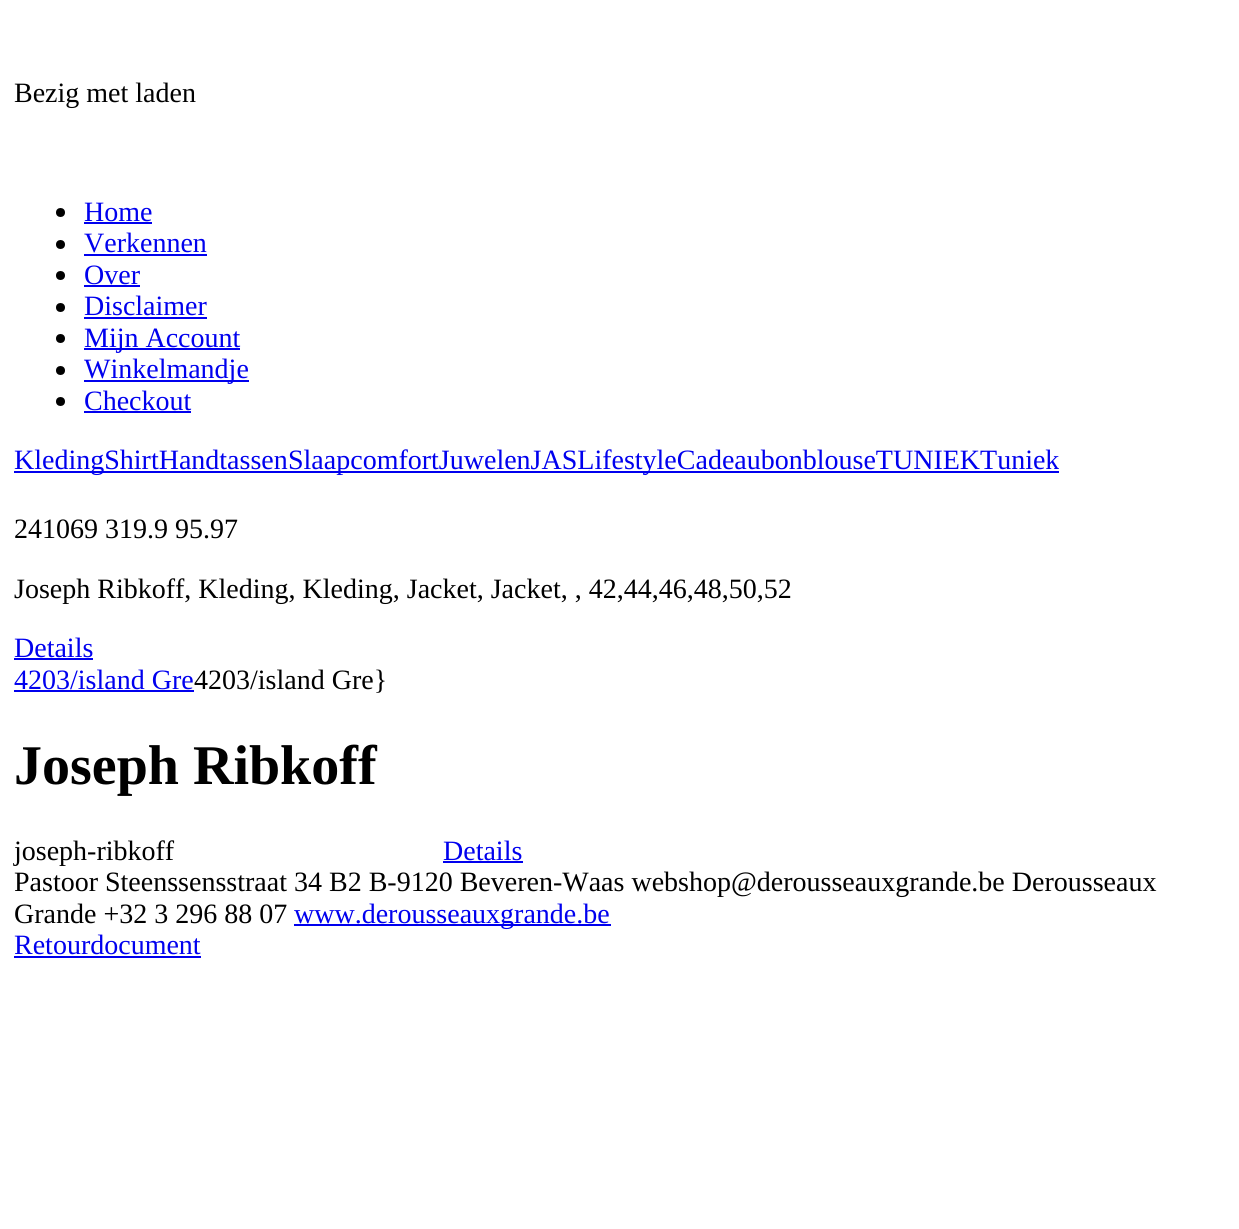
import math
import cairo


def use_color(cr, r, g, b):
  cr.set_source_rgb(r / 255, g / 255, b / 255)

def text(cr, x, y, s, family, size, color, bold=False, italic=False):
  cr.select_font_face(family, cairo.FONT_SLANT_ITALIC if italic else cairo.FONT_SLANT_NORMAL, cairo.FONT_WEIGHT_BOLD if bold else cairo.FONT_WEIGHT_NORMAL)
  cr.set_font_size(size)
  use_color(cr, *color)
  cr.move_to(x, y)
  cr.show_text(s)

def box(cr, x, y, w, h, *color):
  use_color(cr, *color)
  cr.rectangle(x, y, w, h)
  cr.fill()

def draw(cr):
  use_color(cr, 255, 255, 255)
  cr.paint()
  use_color(cr, 0, 0, 0)
  cr.arc(60.5, 212.5, 4.5, 0, 2 * math.pi)
  cr.fill()
  box(cr, 84, 222, 68, 2, 0, 0, 238)
  use_color(cr, 0, 0, 0)
  cr.arc(60.5, 244.5, 4.5, 0, 2 * math.pi)
  cr.fill()
  box(cr, 84, 254, 123, 2, 0, 0, 238)
  use_color(cr, 0, 0, 0)
  cr.arc(60.5, 275.5, 4.5, 0, 2 * math.pi)
  cr.fill()
  box(cr, 84, 285, 56, 2, 0, 0, 238)
  use_color(cr, 0, 0, 0)
  cr.arc(60.5, 307.5, 4.5, 0, 2 * math.pi)
  cr.fill()
  box(cr, 84, 317, 123, 2, 0, 0, 238)
  use_color(cr, 0, 0, 0)
  cr.arc(60.5, 338.5, 4.5, 0, 2 * math.pi)
  cr.fill()
  box(cr, 84, 348, 156, 2, 0, 0, 238)
  use_color(cr, 0, 0, 0)
  cr.arc(60.5, 370.5, 4.5, 0, 2 * math.pi)
  cr.fill()
  box(cr, 84, 380, 165, 2, 0, 0, 238)
  use_color(cr, 0, 0, 0)
  cr.arc(60.5, 401.5, 4.5, 0, 2 * math.pi)
  cr.fill()
  box(cr, 84, 411, 107, 2, 0, 0, 238)
  box(cr, 14, 471, 273, 2, 0, 0, 238)
  box(cr, 287, 471, 772, 2, 0, 0, 238)
  box(cr, 14, 658, 79, 2, 0, 0, 238)
  box(cr, 14, 690, 180, 2, 0, 0, 238)
  box(cr, 443, 861, 80, 2, 0, 0, 238)
  box(cr, 294, 924, 317, 2, 0, 0, 238)
  box(cr, 14, 956, 187, 2, 0, 0, 238)
  text(cr, 14, 102, "Bezig met laden", "Liberation Serif", 28, (0, 0, 0))
  text(cr, 84, 221, "Home", "Liberation Serif", 28, (0, 0, 238))
  text(cr, 84, 252, "Verkennen", "Liberation Serif", 28, (0, 0, 238))
  text(cr, 84, 284, "Over", "Liberation Serif", 28, (0, 0, 238))
  text(cr, 84, 315, "Disclaimer", "Liberation Serif", 28, (0, 0, 238))
  text(cr, 84, 347, "Mijn Account", "Liberation Serif", 28, (0, 0, 238))
  text(cr, 84, 378, "Winkelmandje", "Liberation Serif", 28, (0, 0, 238))
  text(cr, 84, 410, "Checkout", "Liberation Serif", 28, (0, 0, 238))
  text(cr, 14, 469, "KledingShirtHandtassen", "Liberation Serif", 28, (0, 0, 238))
  text(cr, 288, 469, "SlaapcomfortJuwelenJASLifestyleCadeaubonblouseTUNIEKTuniek", "Liberation Serif", 28, (0, 0, 238))
  text(cr, 14, 538, "241069 319.9 95.97", "Liberation Serif", 28, (0, 0, 0))
  text(cr, 14, 598, "Joseph Ribkoff, Kleding, Kleding, Jacket, Jacket, , 42,44,46,48,50,52", "Liberation Serif", 28, (0, 0, 0))
  text(cr, 14, 657, "Details", "Liberation Serif", 28, (0, 0, 238))
  text(cr, 14, 689, "4203/island Gre", "Liberation Serif", 28, (0, 0, 238))
  text(cr, 194, 689, "4203/island Gre}", "Liberation Serif", 28, (0, 0, 0))
  text(cr, 14, 784, "Joseph Ribkoff", "Liberation Serif", 56, (0, 0, 0), bold=True)
  text(cr, 14, 860, "joseph-ribkoff", "Liberation Serif", 28, (0, 0, 0))
  text(cr, 443, 860, "Details", "Liberation Serif", 28, (0, 0, 238))
  text(cr, 14, 891, "Pastoor Steenssensstraat 34 B2 B-9120 Beveren-Waas webshop@derousseauxgrande.be Derousseaux", "Liberation Serif", 28, (0, 0, 0))
  text(cr, 14, 923, "Grande +32 3 296 88 07", "Liberation Serif", 28, (0, 0, 0))
  text(cr, 294, 923, "www.derousseauxgrande.be", "Liberation Serif", 28, (0, 0, 238))
  text(cr, 14, 954, "Retourdocument", "Liberation Serif", 28, (0, 0, 238))


surface = cairo.ImageSurface(cairo.FORMAT_RGB24, 1239, 1229)
cr = cairo.Context(surface)
options = cairo.FontOptions()
options.set_hint_metrics(cairo.HINT_METRICS_OFF)
options.set_hint_style(cairo.HINT_STYLE_NONE)
cr.set_font_options(options)
cr.set_miter_limit(4)
draw(cr)
surface.write_to_png("out.png")
